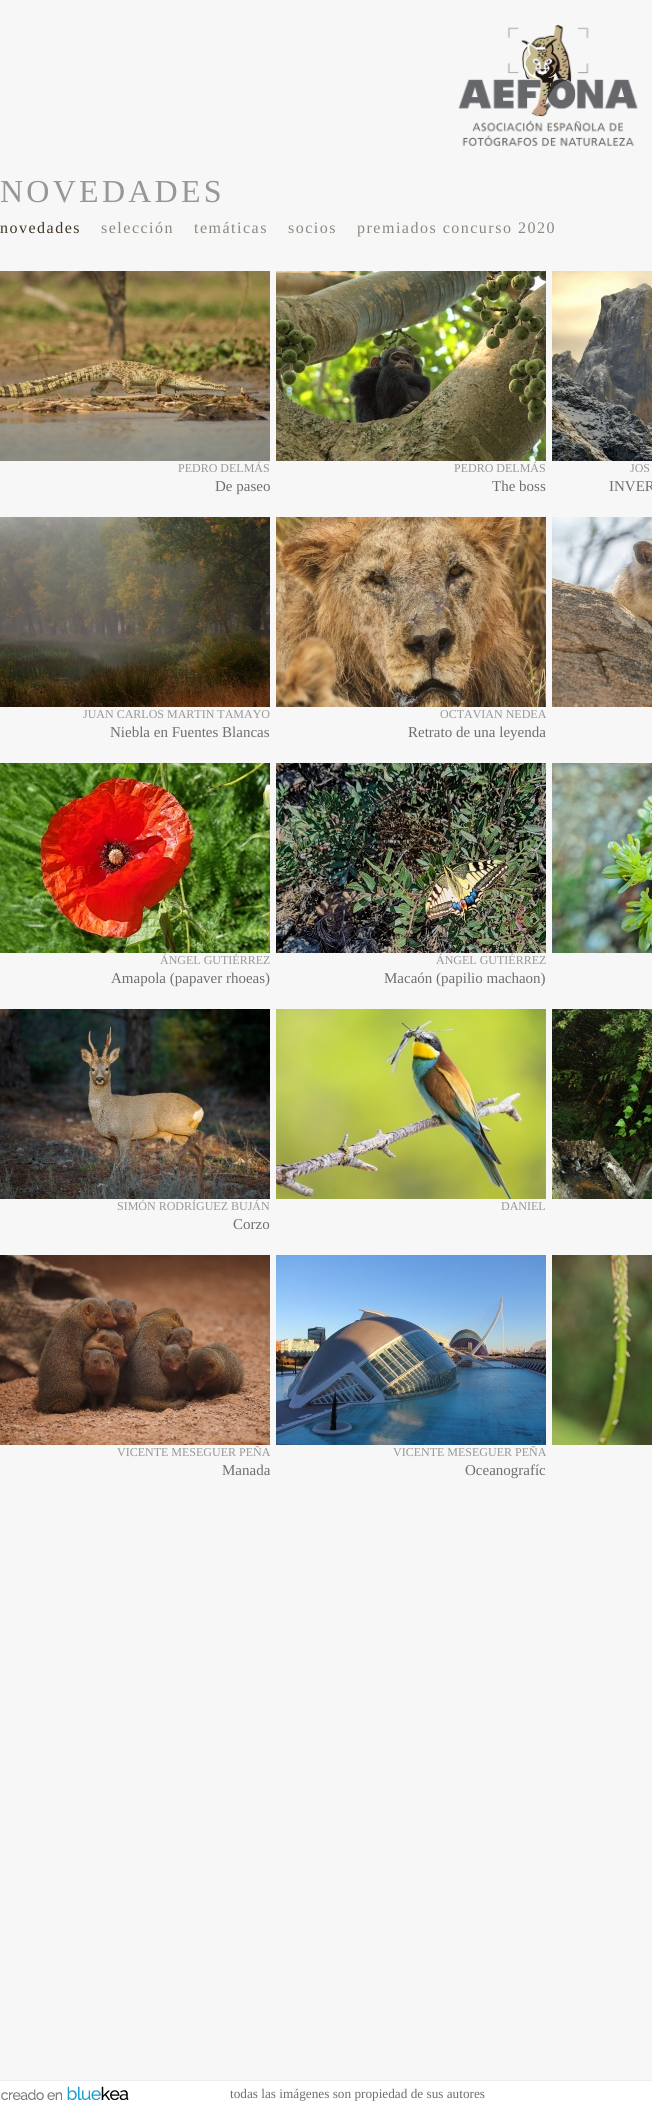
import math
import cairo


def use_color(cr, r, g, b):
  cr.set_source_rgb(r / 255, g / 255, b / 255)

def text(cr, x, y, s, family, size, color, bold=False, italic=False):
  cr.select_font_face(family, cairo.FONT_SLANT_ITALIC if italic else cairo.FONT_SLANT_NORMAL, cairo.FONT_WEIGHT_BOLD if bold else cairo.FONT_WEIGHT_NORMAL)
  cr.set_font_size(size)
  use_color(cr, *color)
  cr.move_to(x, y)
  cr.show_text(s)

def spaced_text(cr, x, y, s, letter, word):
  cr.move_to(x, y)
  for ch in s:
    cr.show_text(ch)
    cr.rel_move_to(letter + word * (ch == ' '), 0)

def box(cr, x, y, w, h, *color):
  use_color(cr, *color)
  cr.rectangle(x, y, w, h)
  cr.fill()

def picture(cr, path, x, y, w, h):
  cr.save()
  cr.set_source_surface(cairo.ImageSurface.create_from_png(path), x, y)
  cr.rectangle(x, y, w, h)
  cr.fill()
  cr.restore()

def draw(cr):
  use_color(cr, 247, 247, 247)
  cr.paint()
  picture(cr, "img_01.png", 458, 24, 180, 123)
  picture(cr, "img_02.png", 0, 271, 270, 190)
  picture(cr, "img_03.png", 276, 271, 270, 190)
  picture(cr, "img_04.png", 552, 271, 100, 190)
  picture(cr, "img_05.png", 552, 517, 100, 190)
  picture(cr, "img_06.png", 0, 517, 270, 190)
  picture(cr, "img_07.png", 276, 517, 270, 190)
  picture(cr, "img_08.png", 552, 763, 100, 190)
  picture(cr, "img_09.png", 0, 763, 270, 190)
  picture(cr, "img_10.png", 276, 763, 270, 190)
  picture(cr, "img_11.png", 552, 1009, 100, 190)
  picture(cr, "img_12.png", 0, 1009, 270, 190)
  picture(cr, "img_13.png", 276, 1009, 270, 190)
  picture(cr, "img_14.png", 552, 1255, 100, 190)
  picture(cr, "img_15.png", 0, 1255, 270, 190)
  picture(cr, "img_16.png", 276, 1255, 270, 190)
  box(cr, 0, 2081, 652, 25, 255, 255, 255)
  box(cr, 0, 2080, 652, 1, 238, 238, 238)
  picture(cr, "img_17.png", 1, 2086, 128, 14)
  cr.select_font_face("Liberation Serif")
  cr.set_font_size(32)
  use_color(cr, 151, 151, 151)
  spaced_text(cr, 0, 202, "NOVEDADES", 3.25, 0)
  cr.set_font_size(16)
  use_color(cr, 64, 53, 37)
  spaced_text(cr, 0, 233, "novedades", 1.5, 0)
  use_color(cr, 138, 136, 127)
  spaced_text(cr, 101, 233, "selección", 1.5, 0)
  spaced_text(cr, 194, 233, "temáticas", 1.5, 0)
  spaced_text(cr, 288, 233, "socios", 1.5, 0)
  spaced_text(cr, 357, 233, "premiados concurso 2020", 1.5, 0)
  text(cr, 178, 472, "PEDRO DELMÁS", "Liberation Serif", 12, (151, 151, 151))
  text(cr, 215, 491, "De paseo", "Liberation Serif", 15, (110, 110, 110))
  text(cr, 454, 472, "PEDRO DELMÁS", "Liberation Serif", 12, (151, 151, 151))
  text(cr, 492, 491, "The boss", "Liberation Serif", 15, (110, 110, 110))
  text(cr, 630, 472, "JOS", "Liberation Serif", 12, (151, 151, 151))
  text(cr, 609, 491, "INVER", "Liberation Serif", 15, (110, 110, 110))
  text(cr, 83, 718, "JUAN CARLOS MARTIN TAMAYO", "Liberation Serif", 12, (151, 151, 151))
  text(cr, 110, 737, "Niebla en Fuentes Blancas", "Liberation Serif", 15, (110, 110, 110))
  text(cr, 440, 718, "OCTAVIAN NEDEA", "Liberation Serif", 12, (151, 151, 151))
  text(cr, 408, 737, "Retrato de una leyenda", "Liberation Serif", 15, (110, 110, 110))
  text(cr, 160, 964, "ÁNGEL GUTIÉRREZ", "Liberation Serif", 12, (151, 151, 151))
  text(cr, 111, 983, "Amapola (papaver rhoeas)", "Liberation Serif", 15, (110, 110, 110))
  text(cr, 436, 964, "ÁNGEL GUTIÉRREZ", "Liberation Serif", 12, (151, 151, 151))
  text(cr, 384, 983, "Macaón (papilio machaon)", "Liberation Serif", 15, (110, 110, 110))
  text(cr, 117, 1210, "SIMÓN RODRÍGUEZ BUJÁN", "Liberation Serif", 12, (151, 151, 151))
  text(cr, 233, 1229, "Corzo", "Liberation Serif", 15, (110, 110, 110))
  text(cr, 501, 1210, "DANIEL", "Liberation Serif", 12, (151, 151, 151))
  text(cr, 117, 1456, "VICENTE MESEGUER PEÑA", "Liberation Serif", 12, (151, 151, 151))
  text(cr, 222, 1475, "Manada", "Liberation Serif", 15, (110, 110, 110))
  text(cr, 393, 1456, "VICENTE MESEGUER PEÑA", "Liberation Serif", 12, (151, 151, 151))
  text(cr, 465, 1475, "Oceanografíc", "Liberation Serif", 15, (110, 110, 110))
  text(cr, 230, 2098, "todas las imágenes son propiedad de sus autores", "Liberation Serif", 13.25, (110, 110, 110))


surface = cairo.ImageSurface(cairo.FORMAT_RGB24, 652, 2106)
cr = cairo.Context(surface)
options = cairo.FontOptions()
options.set_hint_metrics(cairo.HINT_METRICS_OFF)
options.set_hint_style(cairo.HINT_STYLE_NONE)
cr.set_font_options(options)
cr.set_miter_limit(4)
draw(cr)
surface.write_to_png("out.png")
